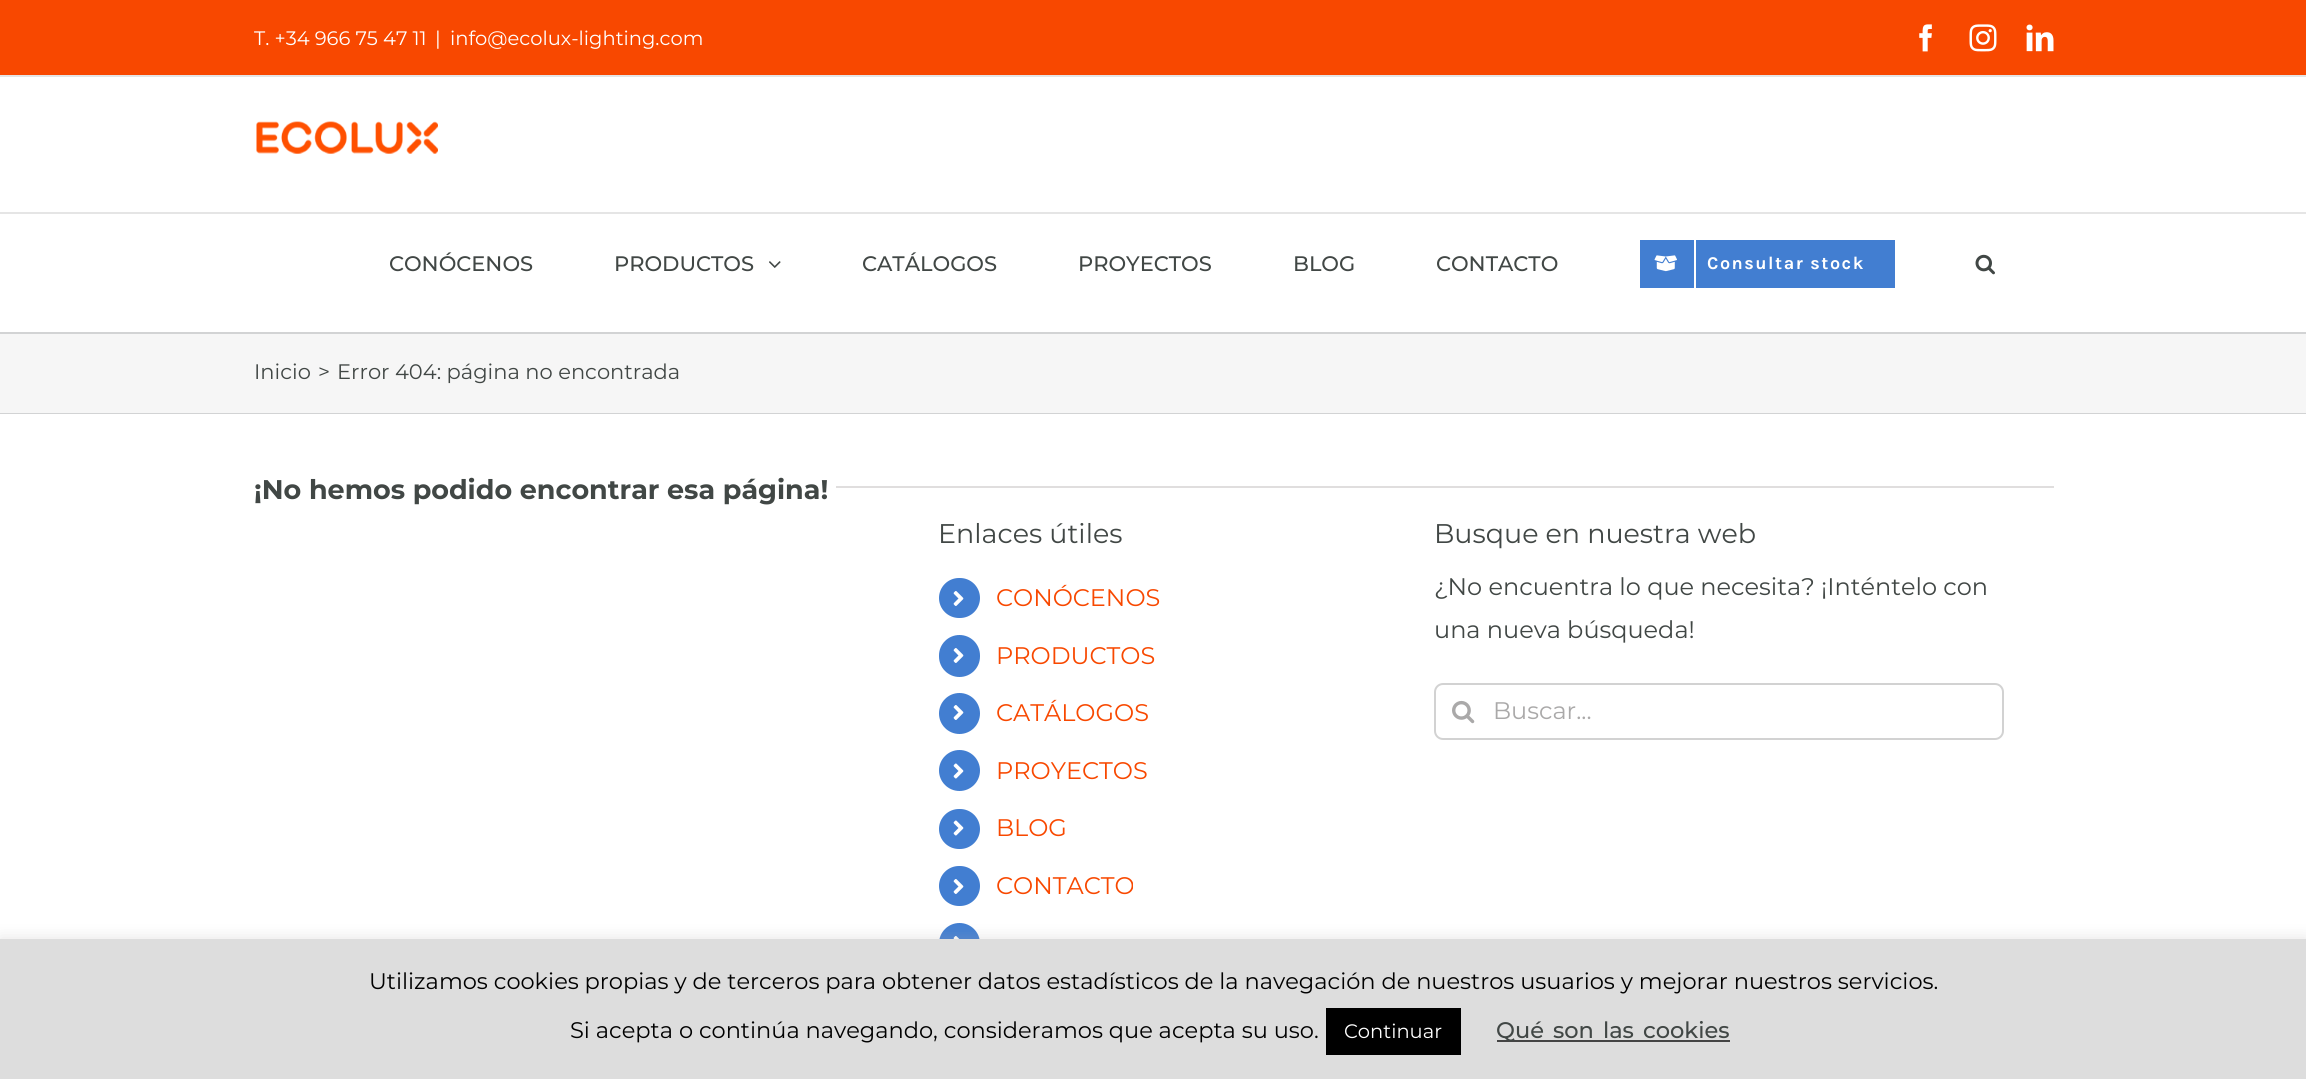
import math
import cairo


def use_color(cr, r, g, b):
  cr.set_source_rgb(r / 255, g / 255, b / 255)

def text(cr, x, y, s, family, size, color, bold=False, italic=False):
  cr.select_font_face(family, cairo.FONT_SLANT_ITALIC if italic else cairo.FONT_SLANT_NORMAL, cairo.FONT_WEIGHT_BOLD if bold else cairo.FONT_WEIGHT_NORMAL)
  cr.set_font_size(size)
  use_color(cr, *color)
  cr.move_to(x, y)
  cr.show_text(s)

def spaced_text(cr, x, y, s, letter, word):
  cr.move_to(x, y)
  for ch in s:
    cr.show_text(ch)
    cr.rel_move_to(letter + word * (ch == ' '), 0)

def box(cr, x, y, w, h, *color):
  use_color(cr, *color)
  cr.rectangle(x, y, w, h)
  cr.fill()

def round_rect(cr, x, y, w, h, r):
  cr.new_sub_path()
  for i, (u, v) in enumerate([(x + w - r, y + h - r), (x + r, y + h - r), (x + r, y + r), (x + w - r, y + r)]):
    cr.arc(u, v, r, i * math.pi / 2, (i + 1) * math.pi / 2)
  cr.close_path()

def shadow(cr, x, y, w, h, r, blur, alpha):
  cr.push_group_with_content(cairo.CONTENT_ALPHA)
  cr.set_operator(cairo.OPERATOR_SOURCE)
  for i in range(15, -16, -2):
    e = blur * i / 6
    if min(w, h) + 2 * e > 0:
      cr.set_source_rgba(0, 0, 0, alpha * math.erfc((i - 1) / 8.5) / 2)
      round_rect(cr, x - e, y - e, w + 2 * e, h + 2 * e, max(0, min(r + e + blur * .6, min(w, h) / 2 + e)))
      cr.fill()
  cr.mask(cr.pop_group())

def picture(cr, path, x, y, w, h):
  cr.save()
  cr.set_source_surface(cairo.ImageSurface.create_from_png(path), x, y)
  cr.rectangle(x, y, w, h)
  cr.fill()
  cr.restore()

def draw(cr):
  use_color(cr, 255, 255, 255)
  cr.paint()
  box(cr, 0, 0, 2306, 75, 248, 72, 0)
  box(cr, 0, 75, 2306, 2, 229, 229, 229)
  picture(cr, "img_01.png", 1919, 24, 13, 28)
  picture(cr, "img_02.png", 1969, 24, 28, 28)
  picture(cr, "img_03.png", 2026, 24, 28, 28)
  box(cr, 0, 212, 2306, 2, 229, 229, 229)
  picture(cr, "img_04.png", 256, 121, 182, 33)
  picture(cr, "img_05.png", 769, 261, 12, 7)
  box(cr, 1640, 240, 255, 48, 66, 126, 209)
  box(cr, 1694, 240, 2, 48, 255, 255, 255)
  picture(cr, "img_06.png", 1654, 255, 23, 17)
  picture(cr, "img_07.png", 1975, 254, 20, 21)
  box(cr, 0, 334, 2306, 79, 246, 246, 246)
  box(cr, 0, 332, 2306, 2, 210, 211, 212)
  box(cr, 0, 413, 2306, 1, 210, 211, 212)
  box(cr, 836, 486, 1218, 2, 224, 222, 222)
  use_color(cr, 66, 126, 209)
  round_rect(cr, 939, 578, 41, 40, 20)
  cr.fill()
  picture(cr, "img_08.png", 953, 591, 11, 15)
  round_rect(cr, 939, 635, 41, 42, 20.5)
  cr.fill()
  picture(cr, "img_08.png", 953, 648, 11, 15)
  cr.arc(959.5, 713.5, 20.5, 0, 2 * math.pi)
  cr.fill()
  picture(cr, "img_08.png", 953, 705, 11, 15)
  cr.arc(959.5, 770.5, 20.5, 0, 2 * math.pi)
  cr.fill()
  picture(cr, "img_09.png", 953, 763, 11, 16)
  round_rect(cr, 939, 809, 41, 40, 20)
  cr.fill()
  picture(cr, "img_09.png", 953, 820, 11, 16)
  round_rect(cr, 939, 866, 41, 40, 20)
  cr.fill()
  picture(cr, "img_08.png", 953, 879, 11, 15)
  round_rect(cr, 939, 923, 41, 42, 20.5)
  cr.fill()
  picture(cr, "img_10.png", 953, 936, 7, 3)
  round_rect(cr, 1435, 684, 568, 55, 8)
  use_color(cr, 210, 210, 210)
  cr.stroke()
  picture(cr, "img_11.png", 1452, 700, 23, 24)
  use_color(cr, 172, 171, 171)
  shadow(cr, 0, 938, 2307, 141, 0, 7.5, 0.3)
  box(cr, 0, 939, 2306, 140, 221, 221, 221)
  box(cr, 1326, 1008, 135, 47, 0, 0, 0)
  box(cr, 1497, 1040, 233, 2, 68, 68, 68)
  text(cr, 254, 45, "T. +34 966 75 47 11", "Montserrat", 19.5, (255, 255, 255))
  text(cr, 435, 45, "|", "Montserrat", 19.5, (255, 255, 255))
  text(cr, 450, 45, "info@ecolux-lighting.com", "Montserrat", 19.5, (255, 255, 255))
  text(cr, 389, 271, "CONÓCENOS", "Montserrat Medium", 21, (65, 71, 69))
  text(cr, 614, 271, "PRODUCTOS", "Montserrat Medium", 21, (65, 71, 69))
  text(cr, 862, 271, "CATÁLOGOS", "Montserrat Medium", 21, (65, 71, 69))
  text(cr, 1078, 271, "PROYECTOS", "Montserrat Medium", 21, (65, 71, 69))
  text(cr, 1293, 271, "BLOG", "Montserrat Medium", 21, (65, 71, 69))
  text(cr, 1436, 271, "CONTACTO", "Montserrat Medium", 21, (65, 71, 69))
  cr.select_font_face("Karla", cairo.FONT_SLANT_NORMAL, cairo.FONT_WEIGHT_BOLD)
  cr.set_font_size(18)
  use_color(cr, 255, 255, 255)
  spaced_text(cr, 1707, 269, "Consultar stock", 1.5, 0)
  text(cr, 254, 379, "Inicio", "Montserrat", 21, (65, 71, 69))
  text(cr, 318, 379, ">", "Montserrat", 21, (65, 71, 69))
  text(cr, 337, 379, "Error 404: página no encontrada", "Montserrat", 21, (65, 71, 69))
  text(cr, 254, 499, "¡No hemos podido encontrar esa página!", "Montserrat", 27, (65, 71, 69), bold=True)
  text(cr, 938, 543, "Enlaces útiles", "Montserrat", 27, (65, 71, 69))
  text(cr, 996, 606, "CONÓCENOS", "Montserrat", 24, (248, 72, 0))
  text(cr, 996, 664, "PRODUCTOS", "Montserrat", 24, (248, 72, 0))
  text(cr, 996, 721, "CATÁLOGOS", "Montserrat", 24, (248, 72, 0))
  text(cr, 996, 779, "PROYECTOS", "Montserrat", 24, (248, 72, 0))
  text(cr, 996, 836, "BLOG", "Montserrat", 24, (248, 72, 0))
  text(cr, 996, 894, "CONTACTO", "Montserrat", 24, (248, 72, 0))
  text(cr, 1434, 543, "Busque en nuestra web", "Montserrat", 27, (65, 71, 69))
  text(cr, 1434, 595, "¿No encuentra lo que necesita? ¡Inténtelo con", "Montserrat", 24, (65, 71, 69))
  text(cr, 1434, 638, "una nueva búsqueda!", "Montserrat", 24, (65, 71, 69))
  text(cr, 1493, 719, "Buscar...", "Montserrat", 24, (170, 169, 169))
  text(cr, 369, 989, "Utilizamos cookies propias y de terceros para obtener datos estadísticos de la navegación de nuestros usuarios y mejorar nuestros servicios.", "Montserrat", 22.5, (0, 0, 0))
  text(cr, 570, 1038, "Si acepta o continúa navegando, consideramos que acepta su uso.", "Montserrat", 22.5, (0, 0, 0))
  text(cr, 1344, 1038, "Continuar", "Montserrat", 19.5, (255, 255, 255))
  cr.select_font_face("Montserrat Medium")
  cr.set_font_size(22.5)
  use_color(cr, 65, 71, 69)
  spaced_text(cr, 1496, 1038, "Qué son las cookies", 0, 3)


surface = cairo.ImageSurface(cairo.FORMAT_RGB24, 2306, 1079)
cr = cairo.Context(surface)
options = cairo.FontOptions()
options.set_hint_metrics(cairo.HINT_METRICS_OFF)
options.set_hint_style(cairo.HINT_STYLE_NONE)
cr.set_font_options(options)
cr.set_miter_limit(4)
draw(cr)
surface.write_to_png("out.png")
